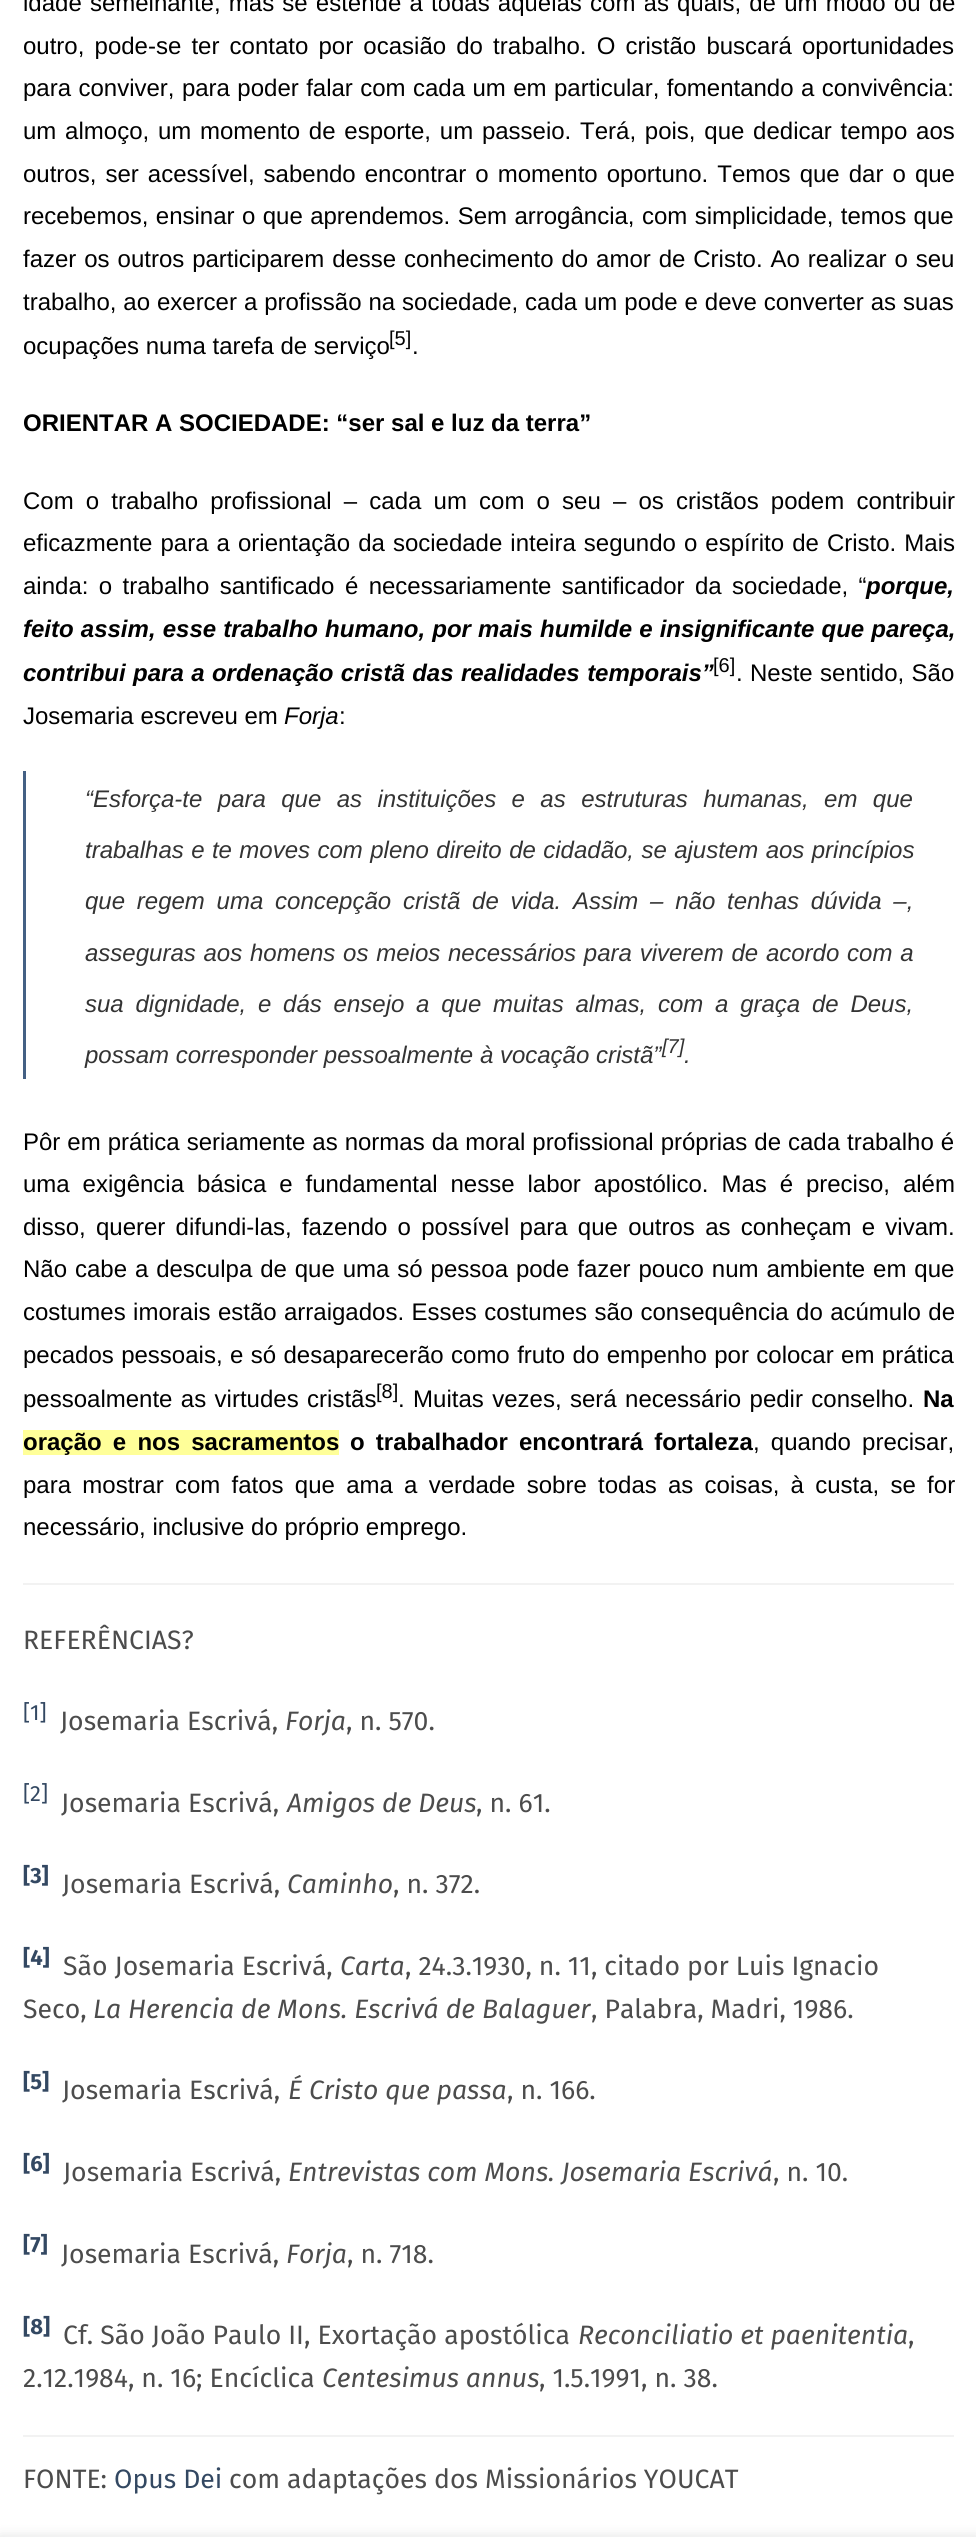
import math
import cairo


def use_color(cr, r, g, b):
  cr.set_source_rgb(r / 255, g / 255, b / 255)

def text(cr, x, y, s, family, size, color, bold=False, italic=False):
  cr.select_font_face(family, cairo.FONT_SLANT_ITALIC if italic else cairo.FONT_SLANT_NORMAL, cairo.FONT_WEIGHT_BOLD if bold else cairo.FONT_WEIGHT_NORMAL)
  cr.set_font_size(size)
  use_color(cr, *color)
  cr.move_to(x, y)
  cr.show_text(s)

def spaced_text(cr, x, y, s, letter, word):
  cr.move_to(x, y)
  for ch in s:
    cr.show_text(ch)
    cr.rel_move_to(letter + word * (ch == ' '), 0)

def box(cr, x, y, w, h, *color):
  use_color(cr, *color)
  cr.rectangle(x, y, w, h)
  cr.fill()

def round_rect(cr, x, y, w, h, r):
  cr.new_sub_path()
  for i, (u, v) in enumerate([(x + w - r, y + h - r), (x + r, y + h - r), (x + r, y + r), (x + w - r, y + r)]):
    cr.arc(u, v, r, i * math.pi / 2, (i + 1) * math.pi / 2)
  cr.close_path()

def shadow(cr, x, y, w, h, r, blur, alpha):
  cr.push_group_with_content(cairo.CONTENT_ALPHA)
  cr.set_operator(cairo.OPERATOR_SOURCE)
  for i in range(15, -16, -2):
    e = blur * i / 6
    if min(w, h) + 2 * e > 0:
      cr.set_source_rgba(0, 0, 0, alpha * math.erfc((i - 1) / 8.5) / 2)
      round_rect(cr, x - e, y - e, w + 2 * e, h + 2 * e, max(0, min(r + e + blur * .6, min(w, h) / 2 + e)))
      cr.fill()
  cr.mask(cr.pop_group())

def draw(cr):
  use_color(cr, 255, 255, 255)
  cr.paint()
  box(cr, 23, 771, 3, 308, 68, 96, 132)
  box(cr, 23, 1430, 316, 25, 255, 255, 153)
  box(cr, 23, 1583, 931, 2, 242, 242, 242)
  box(cr, 23, 2435, 931, 2, 242, 242, 242)
  use_color(cr, 0, 0, 0)
  shadow(cr, 0, 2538, 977, 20, 0, 7, 0.14)
  cr.select_font_face("Liberation Sans")
  cr.set_font_size(24)
  use_color(cr, 0, 0, 0)
  spaced_text(cr, 23, 11, "idade semelhante, mas se estende a todas aquelas com as quais, de um modo ou de", 0, 1.5)
  spaced_text(cr, 23, 54, "outro, pode-se ter contato por ocasião do trabalho. O cristão buscará oportunidades", 0, 3.5)
  spaced_text(cr, 23, 96, "para conviver, para poder falar com cada um em particular, fomentando a convivência:", 0, 0.75)
  spaced_text(cr, 23, 139, "um almoço, um momento de esporte, um passeio. Terá, pois, que dedicar tempo aos", 0, 2.1)
  spaced_text(cr, 23, 182, "outros, ser acessível, sabendo encontrar o momento oportuno. Temos que dar o que", 0, 2.4)
  spaced_text(cr, 23, 224, "recebemos, ensinar o que aprendemos. Sem arrogância, com simplicidade, temos que", 0, 0.75)
  spaced_text(cr, 23, 267, "fazer os outros participarem desse conhecimento do amor de Cristo. Ao realizar o seu", 0, 1.25)
  spaced_text(cr, 23, 310, "trabalho, ao exercer a profissão na sociedade, cada um pode e deve converter as suas", 0, 0.25)
  text(cr, 23, 354, "ocupações numa tarefa de serviço", "Liberation Sans", 24, (0, 0, 0))
  text(cr, 389, 345, "[5]", "Liberation Sans", 20, (0, 0, 0))
  text(cr, 412, 354, ".", "Liberation Sans", 24, (0, 0, 0))
  text(cr, 23, 431, "ORIENTAR A SOCIEDADE: “ser sal e luz da terra”", "Liberation Sans", 24, (0, 0, 0), bold=True)
  cr.select_font_face("Liberation Sans")
  spaced_text(cr, 23, 509, "Com o trabalho profissional – cada um com o seu – os cristãos podem contribuir", 0, 5.5)
  spaced_text(cr, 23, 551, "eficazmente para a orientação da sociedade inteira segundo o espírito de Cristo. Mais", 0, 1.4)
  spaced_text(cr, 23, 594, "ainda: o trabalho santificado é necessariamente santificador da sociedade, “", 0, 3.75)
  text(cr, 866, 594, "porque,", "Liberation Sans", 24, (0, 0, 0), bold=True, italic=True)
  spaced_text(cr, 23, 637, "feito assim, esse trabalho humano, por mais humilde e insignificante que pareça,", 0, 0.5)
  spaced_text(cr, 23, 681, "contribui para a ordenação cristã das realidades temporais”", 0, 0.75)
  text(cr, 713, 672, "[6]", "Liberation Sans", 20, (0, 0, 0))
  text(cr, 736, 681, ".", "Liberation Sans", 24, (0, 0, 0))
  spaced_text(cr, 750, 681, "Neste sentido, São", 0, 0.75)
  text(cr, 23, 724, "Josemaria escreveu em", "Liberation Sans", 24, (0, 0, 0))
  text(cr, 284, 724, "Forja", "Liberation Sans", 24, (0, 0, 0), italic=True)
  text(cr, 339, 724, ":", "Liberation Sans", 24, (0, 0, 0))
  cr.select_font_face("Liberation Sans", cairo.FONT_SLANT_ITALIC)
  use_color(cr, 51, 51, 51)
  spaced_text(cr, 85, 807, "“Esforça-te para que as instituições e as estruturas humanas, em que", 0, 8.75)
  spaced_text(cr, 85, 858, "trabalhas e te moves com pleno direito de cidadão, se ajustem aos princípios", 0, 0.75)
  spaced_text(cr, 85, 909, "que regem uma concepção cristã de vida. Assim – não tenhas dúvida –,", 0, 5.1)
  spaced_text(cr, 85, 961, "asseguras aos homens os meios necessários para viverem de acordo com a", 0, 1.1)
  spaced_text(cr, 85, 1012, "sua dignidade, e dás ensejo a que muitas almas, com a graça de Deus,", 0, 5.1)
  text(cr, 85, 1063, "possam corresponder pessoalmente à vocação cristã”", "Liberation Sans", 24, (51, 51, 51), italic=True)
  text(cr, 662, 1053, "[7]", "Liberation Sans", 20, (51, 51, 51), italic=True)
  text(cr, 684, 1063, ".", "Liberation Sans", 24, (51, 51, 51), italic=True)
  cr.select_font_face("Liberation Sans")
  use_color(cr, 0, 0, 0)
  spaced_text(cr, 23, 1150, "Pôr em prática seriamente as normas da moral profissional próprias de cada trabalho é", 0, 0.3)
  spaced_text(cr, 23, 1192, "uma exigência básica e fundamental nesse labor apostólico. Mas é preciso, além", 0, 6.25)
  spaced_text(cr, 23, 1235, "disso, querer difundi-las, fazendo o possível para que outros as conheçam e vivam.", 0, 3.6)
  spaced_text(cr, 23, 1277, "Não cabe a desculpa de que uma só pessoa pode fazer pouco num ambiente em que", 0, 1.25)
  spaced_text(cr, 23, 1320, "costumes imorais estão arraigados. Esses costumes são consequência do acúmulo de", 0, 0.75)
  spaced_text(cr, 23, 1363, "pecados pessoais, e só desaparecerão como fruto do empenho por colocar em prática", 0, 0.75)
  spaced_text(cr, 23, 1407, "pessoalmente as virtudes cristãs", 0, 1.75)
  text(cr, 376, 1398, "[8]", "Liberation Sans", 20, (0, 0, 0))
  cr.set_font_size(24)
  spaced_text(cr, 398, 1407, ". Muitas vezes, será necessário pedir conselho.", 0, 1.75)
  text(cr, 923, 1407, "Na", "Liberation Sans", 24, (0, 0, 0), bold=True)
  spaced_text(cr, 23, 1450, "oração e nos sacramentos", 0, 4.5)
  spaced_text(cr, 350, 1450, "o trabalhador encontrará fortaleza", 0, 4.5)
  cr.select_font_face("Liberation Sans")
  spaced_text(cr, 753, 1450, ", quando precisar,", 0, 4.5)
  spaced_text(cr, 23, 1493, "para mostrar com fatos que ama a verdade sobre todas as coisas, à custa, se for", 0, 4.6)
  text(cr, 23, 1535, "necessário, inclusive do próprio emprego.", "Liberation Sans", 24, (0, 0, 0))
  text(cr, 23, 1649, "REFERÊNCIAS?", "Fira Sans", 26.6, (76, 76, 76))
  text(cr, 23, 1720, "[1]", "Fira Sans", 22, (51, 72, 98))
  text(cr, 60, 1730, "Josemaria Escrivá,", "Fira Sans", 26.6, (76, 76, 76))
  text(cr, 285, 1730, "Forja", "Fira Sans", 26.6, (76, 76, 76), italic=True)
  text(cr, 346, 1730, ", n. 570.", "Fira Sans", 26.6, (76, 76, 76))
  text(cr, 23, 1801, "[2]", "Fira Sans", 22, (51, 72, 98))
  text(cr, 61, 1812, "Josemaria Escrivá,", "Fira Sans", 26.6, (76, 76, 76))
  text(cr, 287, 1812, "Amigos de Deus", "Fira Sans", 26.6, (76, 76, 76), italic=True)
  text(cr, 476, 1812, ", n. 61.", "Fira Sans", 26.6, (76, 76, 76))
  text(cr, 23, 1883, "[3]", "Fira Sans", 22, (51, 72, 98), bold=True)
  text(cr, 62, 1893, "Josemaria Escrivá,", "Fira Sans", 26.6, (76, 76, 76))
  text(cr, 287, 1893, "Caminho", "Fira Sans", 26.6, (76, 76, 76), italic=True)
  text(cr, 393, 1893, ", n. 372.", "Fira Sans", 26.6, (76, 76, 76))
  text(cr, 23, 1965, "[4]", "Fira Sans", 22, (51, 72, 98), bold=True)
  text(cr, 63, 1975, "São Josemaria Escrivá,", "Fira Sans", 26.6, (76, 76, 76))
  text(cr, 340, 1975, "Carta", "Fira Sans", 26.6, (76, 76, 76), italic=True)
  text(cr, 405, 1975, ", 24.3.1930, n. 11, citado por Luis Ignacio", "Fira Sans", 26.6, (76, 76, 76))
  text(cr, 23, 2018, "Seco,", "Fira Sans", 26.6, (76, 76, 76))
  text(cr, 93, 2018, "La Herencia de Mons. Escrivá de Balaguer", "Fira Sans", 26.6, (76, 76, 76), italic=True)
  text(cr, 591, 2018, ", Palabra, Madri, 1986.", "Fira Sans", 26.6, (76, 76, 76))
  text(cr, 23, 2089, "[5]", "Fira Sans", 22, (51, 72, 98), bold=True)
  text(cr, 62, 2099, "Josemaria Escrivá,", "Fira Sans", 26.6, (76, 76, 76))
  text(cr, 288, 2099, "É Cristo que passa", "Fira Sans", 26.6, (76, 76, 76), italic=True)
  text(cr, 507, 2099, ", n. 166.", "Fira Sans", 26.6, (76, 76, 76))
  text(cr, 23, 2171, "[6]", "Fira Sans", 22, (51, 72, 98), bold=True)
  text(cr, 63, 2181, "Josemaria Escrivá,", "Fira Sans", 26.6, (76, 76, 76))
  text(cr, 288, 2181, "Entrevistas com Mons. Josemaria Escrivá", "Fira Sans", 26.6, (76, 76, 76), italic=True)
  text(cr, 773, 2181, ", n. 10.", "Fira Sans", 26.6, (76, 76, 76))
  text(cr, 23, 2252, "[7]", "Fira Sans", 22, (51, 72, 98), bold=True)
  text(cr, 61, 2263, "Josemaria Escrivá,", "Fira Sans", 26.6, (76, 76, 76))
  text(cr, 286, 2263, "Forja", "Fira Sans", 26.6, (76, 76, 76), italic=True)
  text(cr, 347, 2263, ", n. 718.", "Fira Sans", 26.6, (76, 76, 76))
  text(cr, 23, 2334, "[8]", "Fira Sans", 22, (51, 72, 98), bold=True)
  text(cr, 63, 2344, "Cf. São João Paulo II, Exortação apostólica", "Fira Sans", 26.6, (76, 76, 76))
  text(cr, 578, 2344, "Reconciliatio et paenitentia", "Fira Sans", 26.6, (76, 76, 76), italic=True)
  text(cr, 908, 2344, ",", "Fira Sans", 26.6, (76, 76, 76))
  text(cr, 23, 2387, "2.12.1984, n. 16; Encíclica", "Fira Sans", 26.6, (76, 76, 76))
  text(cr, 322, 2387, "Centesimus annus", "Fira Sans", 26.6, (76, 76, 76), italic=True)
  text(cr, 539, 2387, ", 1.5.1991, n. 38.", "Fira Sans", 26.6, (76, 76, 76))
  text(cr, 23, 2488, "FONTE:", "Fira Sans", 26.6, (76, 76, 76))
  text(cr, 114, 2488, "Opus Dei", "Fira Sans", 26.6, (51, 72, 98))
  text(cr, 229, 2488, "com adaptações dos Missionários YOUCAT", "Fira Sans", 26.6, (76, 76, 76))


surface = cairo.ImageSurface(cairo.FORMAT_RGB24, 976, 2537)
cr = cairo.Context(surface)
options = cairo.FontOptions()
options.set_hint_metrics(cairo.HINT_METRICS_OFF)
options.set_hint_style(cairo.HINT_STYLE_NONE)
cr.set_font_options(options)
cr.set_miter_limit(4)
draw(cr)
surface.write_to_png("out.png")
